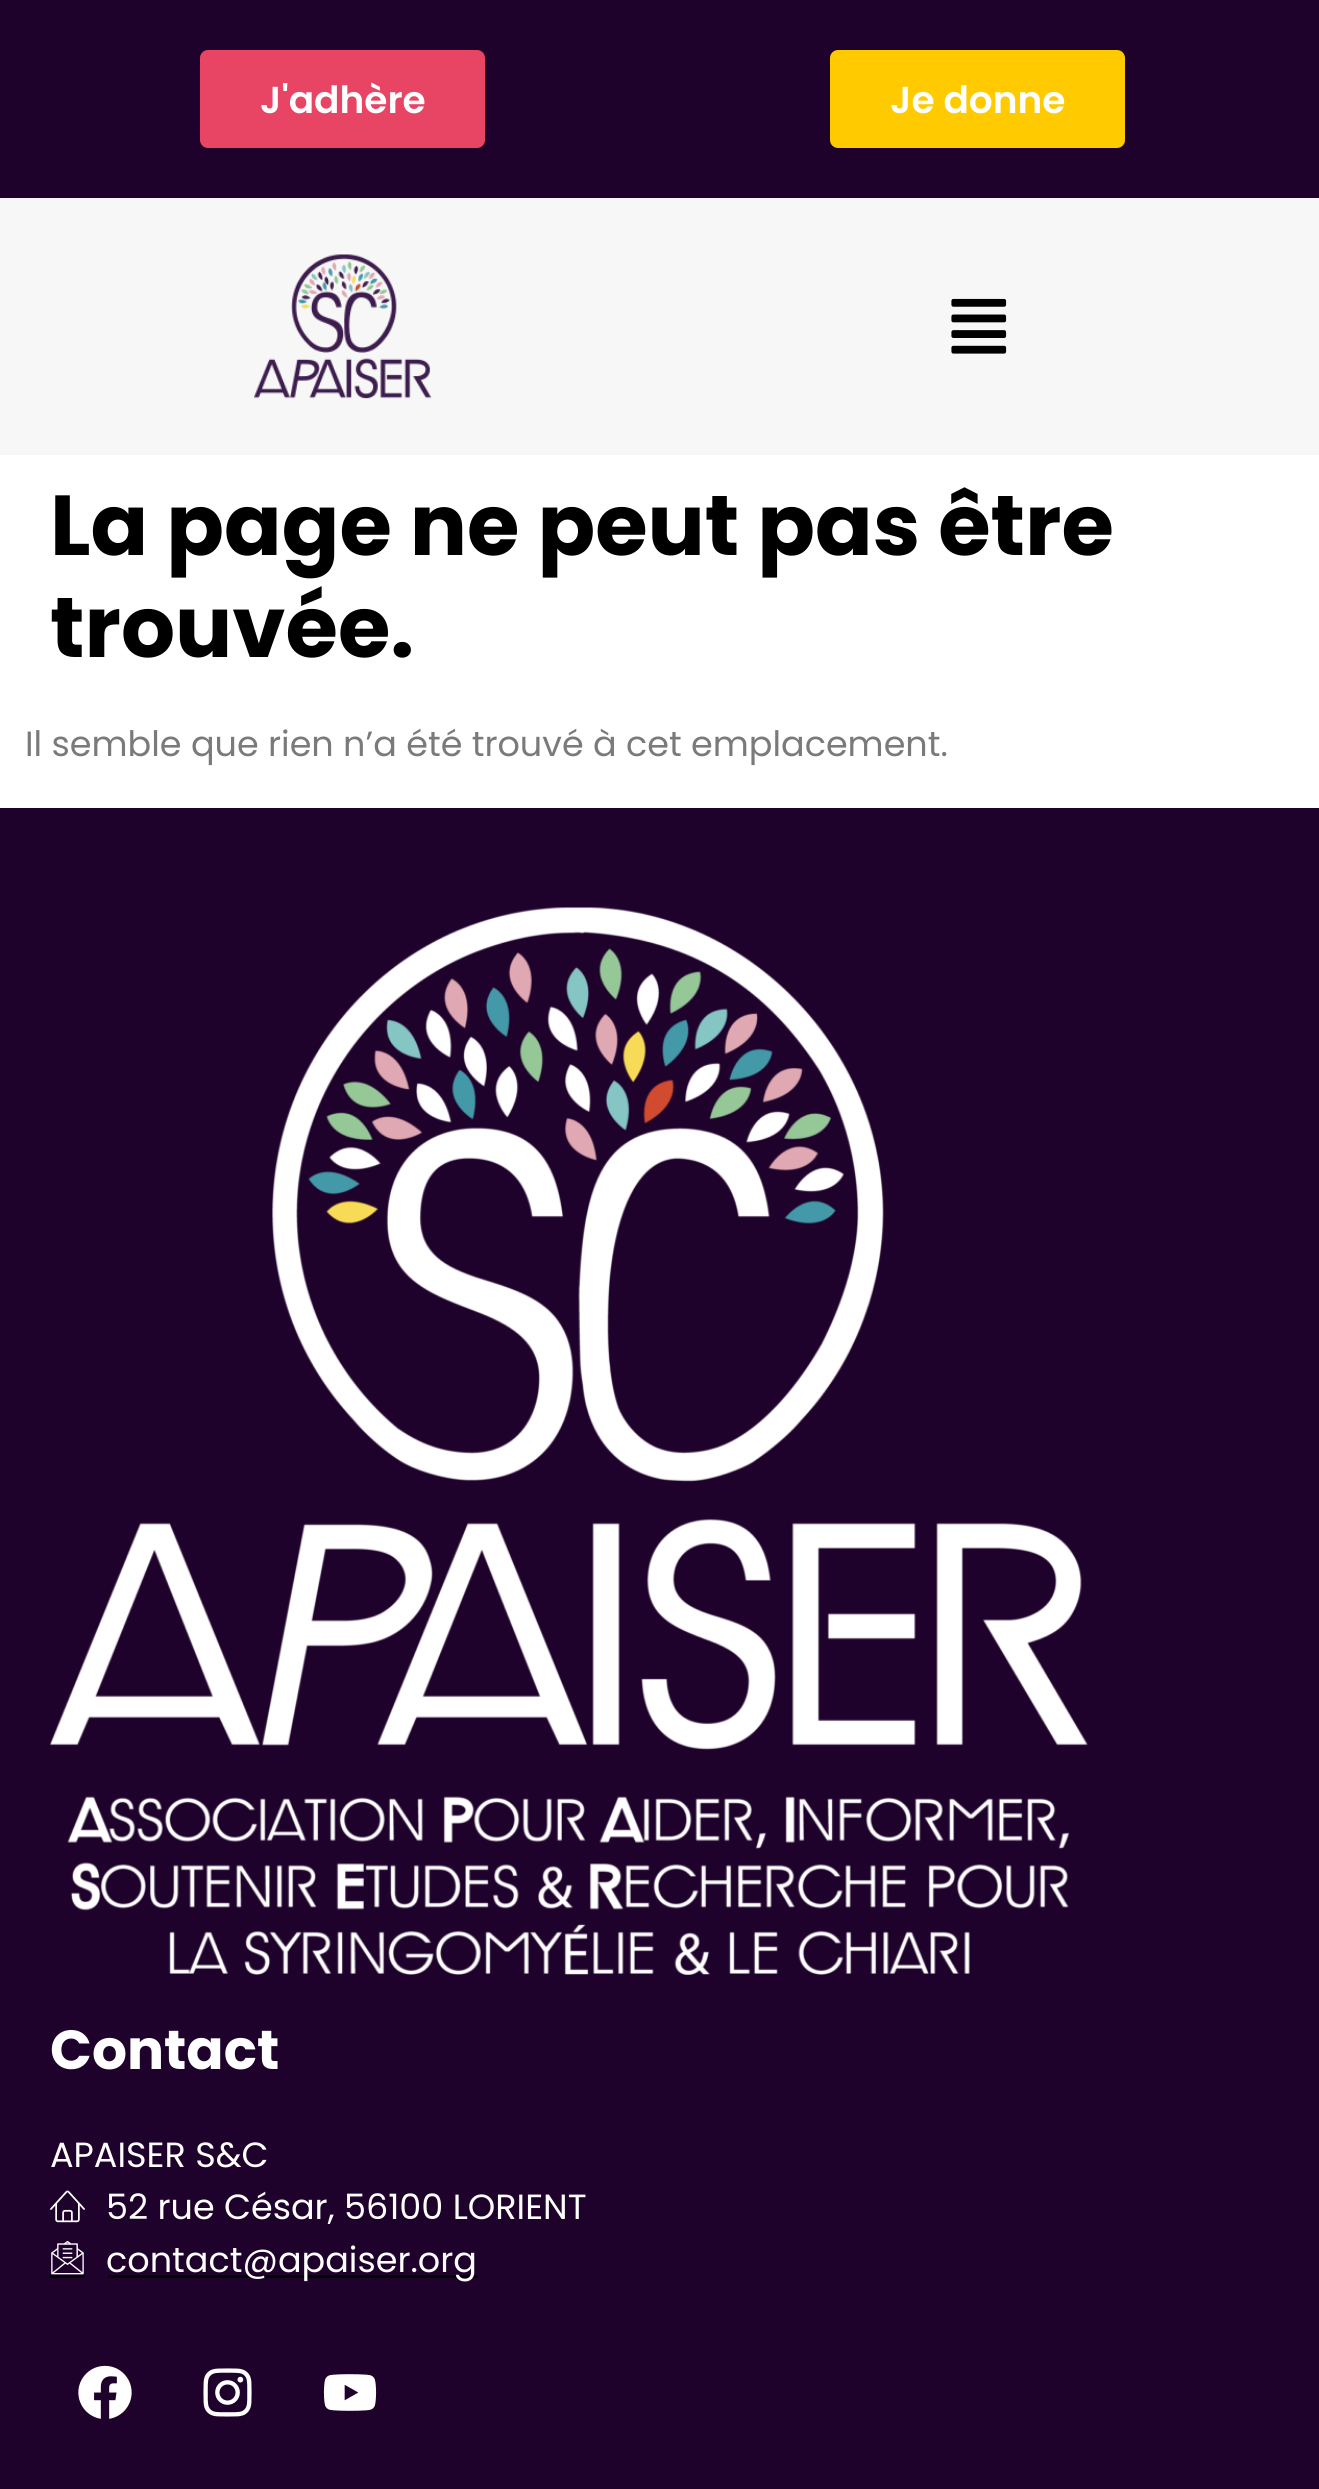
import math
import cairo


def use_color(cr, r, g, b):
  cr.set_source_rgb(r / 255, g / 255, b / 255)

def text(cr, x, y, s, family, size, color, bold=False, italic=False):
  cr.select_font_face(family, cairo.FONT_SLANT_ITALIC if italic else cairo.FONT_SLANT_NORMAL, cairo.FONT_WEIGHT_BOLD if bold else cairo.FONT_WEIGHT_NORMAL)
  cr.set_font_size(size)
  use_color(cr, *color)
  cr.move_to(x, y)
  cr.show_text(s)

def box(cr, x, y, w, h, *color):
  use_color(cr, *color)
  cr.rectangle(x, y, w, h)
  cr.fill()

def round_rect(cr, x, y, w, h, r):
  cr.new_sub_path()
  for i, (u, v) in enumerate([(x + w - r, y + h - r), (x + r, y + h - r), (x + r, y + r), (x + w - r, y + r)]):
    cr.arc(u, v, r, i * math.pi / 2, (i + 1) * math.pi / 2)
  cr.close_path()

def picture(cr, path, x, y, w, h):
  cr.save()
  cr.set_source_surface(cairo.ImageSurface.create_from_png(path), x, y)
  cr.rectangle(x, y, w, h)
  cr.fill()
  cr.restore()

def draw(cr):
  use_color(cr, 255, 255, 255)
  cr.paint()
  box(cr, 0, 0, 1319, 198, 31, 2, 43)
  use_color(cr, 232, 68, 100)
  round_rect(cr, 200, 50, 285, 98, 8)
  cr.fill()
  use_color(cr, 255, 203, 0)
  round_rect(cr, 830, 50, 295, 98, 8)
  cr.fill()
  box(cr, 0, 198, 1319, 257, 247, 247, 247)
  picture(cr, "img_01.png", 254, 254, 178, 145)
  picture(cr, "img_02.png", 951, 298, 56, 56)
  box(cr, 0, 808, 1319, 1681, 31, 2, 43)
  picture(cr, "img_03.png", 50, 907, 1038, 1068)
  picture(cr, "img_04.png", 50, 2190, 35, 33)
  picture(cr, "img_05.png", 51, 2240, 33, 35)
  box(cr, 50, 2275, 35, 3, 0, 0, 0)
  box(cr, 108, 2275, 370, 3, 0, 0, 0)
  picture(cr, "img_06.png", 78, 2365, 54, 54)
  picture(cr, "img_07.png", 203, 2368, 49, 49)
  picture(cr, "img_08.png", 323, 2374, 54, 37)
  text(cr, 260, 113, "J'adhère", "Poppins SemiBold", 37.5, (255, 255, 255))
  text(cr, 890, 113, "Je donne", "Poppins SemiBold", 37.5, (255, 255, 255))
  text(cr, 50, 555, "La page ne peut pas être", "Poppins", 85, (0, 0, 0), bold=True)
  text(cr, 50, 657, "trouvée.", "Poppins", 85, (0, 0, 0), bold=True)
  text(cr, 25, 756, "Il semble que rien n’a été trouvé à cet emplacement.", "Poppins", 35, (122, 122, 122))
  text(cr, 50, 2069, "Contact", "Poppins", 55, (255, 255, 255), bold=True)
  text(cr, 50, 2167, "APAISER S&C", "Poppins", 35, (255, 255, 255))
  text(cr, 106, 2219, "52 rue César, 56100 LORIENT", "Poppins", 35, (255, 255, 255))
  text(cr, 106, 2272, "contact@apaiser.org", "Poppins", 35, (255, 255, 255))


surface = cairo.ImageSurface(cairo.FORMAT_RGB24, 1319, 2489)
cr = cairo.Context(surface)
options = cairo.FontOptions()
options.set_hint_metrics(cairo.HINT_METRICS_OFF)
options.set_hint_style(cairo.HINT_STYLE_NONE)
cr.set_font_options(options)
cr.set_miter_limit(4)
draw(cr)
surface.write_to_png("out.png")
